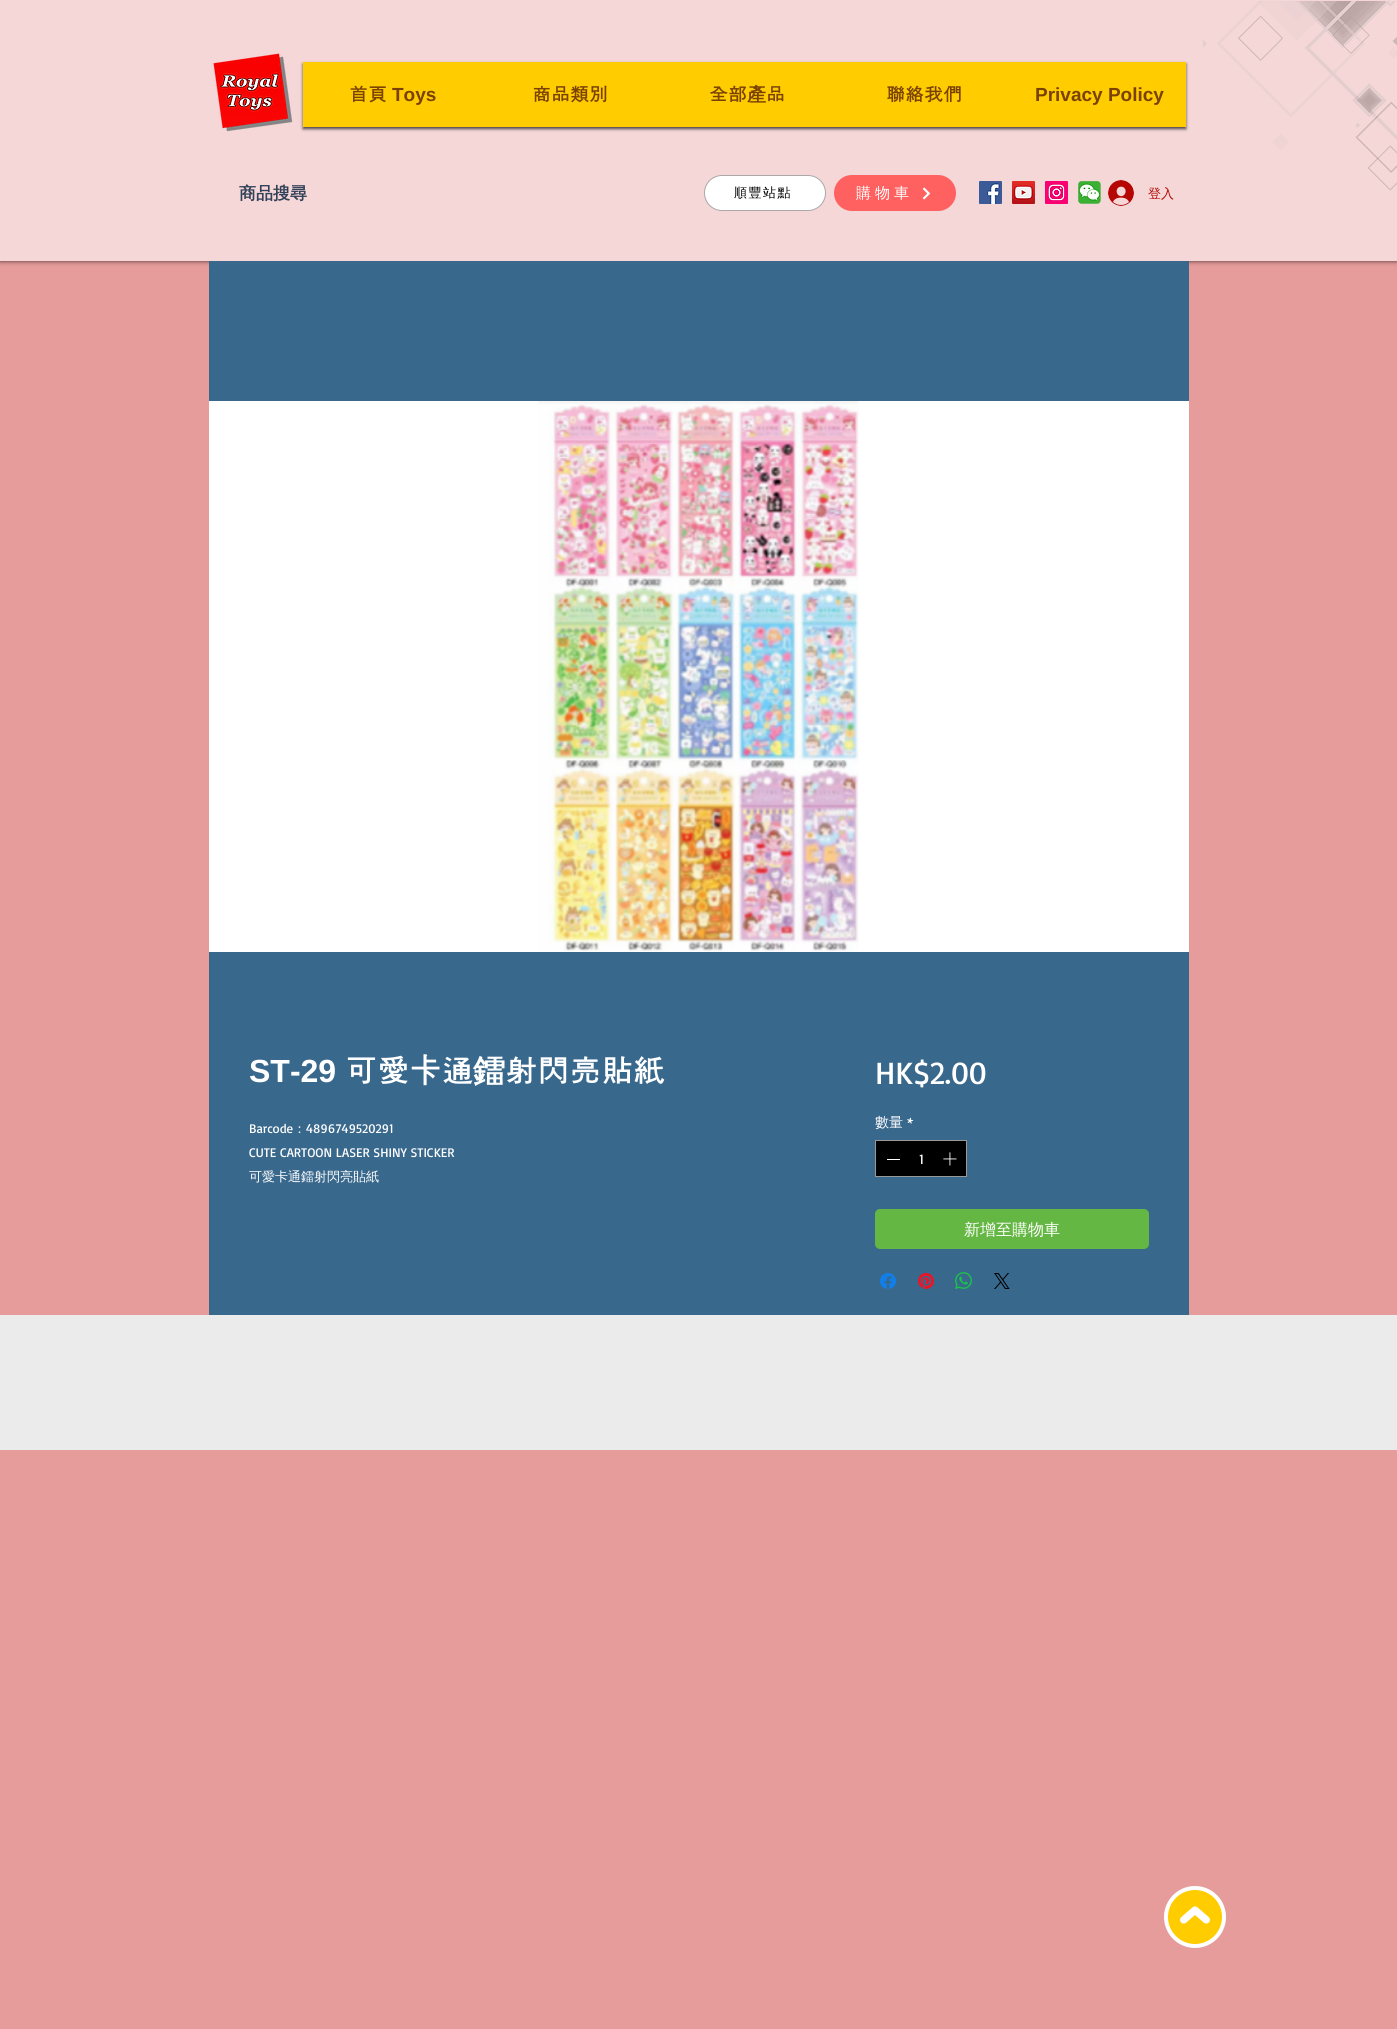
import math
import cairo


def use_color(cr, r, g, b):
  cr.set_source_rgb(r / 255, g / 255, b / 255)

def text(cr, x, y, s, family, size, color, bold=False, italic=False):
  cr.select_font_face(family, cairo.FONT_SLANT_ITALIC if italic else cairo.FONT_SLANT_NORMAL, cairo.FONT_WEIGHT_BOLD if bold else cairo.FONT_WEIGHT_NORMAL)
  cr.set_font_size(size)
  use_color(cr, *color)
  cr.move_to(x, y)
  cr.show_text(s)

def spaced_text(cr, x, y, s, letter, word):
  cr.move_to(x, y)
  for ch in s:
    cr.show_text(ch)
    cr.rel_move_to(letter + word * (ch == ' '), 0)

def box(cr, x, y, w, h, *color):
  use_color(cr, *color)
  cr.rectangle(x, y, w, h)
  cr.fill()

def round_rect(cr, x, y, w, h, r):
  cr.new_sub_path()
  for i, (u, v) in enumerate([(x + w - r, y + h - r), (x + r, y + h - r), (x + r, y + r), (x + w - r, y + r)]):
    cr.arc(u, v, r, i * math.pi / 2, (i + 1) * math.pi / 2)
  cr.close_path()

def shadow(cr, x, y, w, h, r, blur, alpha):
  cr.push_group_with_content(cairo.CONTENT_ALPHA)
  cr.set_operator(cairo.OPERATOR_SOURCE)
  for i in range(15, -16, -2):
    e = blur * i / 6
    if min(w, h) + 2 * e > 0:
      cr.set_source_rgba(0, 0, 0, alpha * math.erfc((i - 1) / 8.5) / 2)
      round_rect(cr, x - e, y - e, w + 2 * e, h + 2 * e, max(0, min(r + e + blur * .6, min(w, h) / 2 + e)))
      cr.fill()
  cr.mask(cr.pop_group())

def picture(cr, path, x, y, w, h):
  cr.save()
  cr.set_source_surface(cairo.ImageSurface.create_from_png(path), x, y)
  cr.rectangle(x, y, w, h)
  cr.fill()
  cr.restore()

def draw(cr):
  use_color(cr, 230, 156, 155)
  cr.paint()
  use_color(cr, 0, 0, 0)
  shadow(cr, 0, 0, 1397, 261, 0, 2.5, 0.7)
  box(cr, 0, 0, 1397, 261, 245, 215, 215)
  picture(cr, "img_01.png", 213, 53, 80, 79)
  use_color(cr, 0, 0, 0)
  shadow(cr, 303, 64, 883, 65, 0, 1.5, 0.7)
  box(cr, 303, 62, 883, 65, 255, 204, 0)
  picture(cr, "img_02.png", 1203, 1, 194, 190)
  use_color(cr, 255, 255, 255)
  round_rect(cr, 704.5, 175.5, 121, 35, 17.5)
  cr.fill_preserve()
  use_color(cr, 170, 168, 168)
  cr.set_line_width(1)
  cr.stroke()
  use_color(cr, 255, 97, 97)
  round_rect(cr, 834, 175, 122, 36, 18)
  cr.fill()
  picture(cr, "img_03.png", 922, 187, 9, 13)
  picture(cr, "img_04.png", 979, 181, 23, 23)
  picture(cr, "img_05.png", 1012, 181, 23, 23)
  picture(cr, "img_06.png", 1045, 181, 23, 23)
  picture(cr, "img_07.png", 1078, 181, 23, 23)
  picture(cr, "img_08.png", 1108, 180, 26, 26)
  box(cr, 209, 261, 980, 1054, 57, 104, 141)
  box(cr, 209, 401, 980, 551, 255, 255, 255)
  picture(cr, "img_09.png", 538, 401, 321, 551)
  use_color(cr, 0, 0, 0)
  cr.rectangle(875.5, 1140.5, 91, 36)
  cr.fill_preserve()
  use_color(cr, 153, 153, 153)
  cr.stroke()
  box(cr, 887, 1159, 13, 1, 255, 255, 255)
  picture(cr, "img_10.png", 943, 1152, 14, 14)
  use_color(cr, 100, 183, 67)
  round_rect(cr, 875, 1209, 274, 40, 5)
  cr.fill()
  picture(cr, "img_11.png", 880, 1273, 16, 16)
  picture(cr, "img_12.png", 918, 1273, 16, 16)
  picture(cr, "img_13.png", 955, 1272, 17, 17)
  picture(cr, "img_14.png", 994, 1273, 16, 16)
  box(cr, 0, 1315, 1397, 135, 235, 235, 235)
  picture(cr, "img_15.png", 1164, 1886, 62, 62)
  text(cr, 349, 101, "首頁", "Dotum", 19, (122, 66, 1), bold=True)
  text(cr, 392, 101, "Toys", "Liberation Sans", 19, (122, 66, 1), bold=True)
  text(cr, 532, 101, "商品類別", "Dotum", 19, (122, 66, 1), bold=True)
  text(cr, 709, 101, "全部", "Dotum", 19, (122, 66, 1), bold=True)
  text(cr, 747, 101, "產", "WenQuanYi Zen Hei", 19, (122, 66, 1), bold=True)
  text(cr, 766, 101, "品", "Dotum", 19, (122, 66, 1), bold=True)
  text(cr, 886, 101, "聯絡我們", "Dotum", 19, (122, 66, 1), bold=True)
  text(cr, 1035, 101, "Privacy Policy", "Liberation Sans", 19, (122, 66, 1), bold=True)
  text(cr, 239, 199, "商品搜尋", "WenQuanYi Zen Hei", 17, (50, 65, 88), bold=True)
  cr.select_font_face("WenQuanYi Zen Hei Medium")
  cr.set_font_size(13)
  use_color(cr, 0, 0, 0)
  spaced_text(cr, 734, 197, "順豐站點", 1.5, 0)
  cr.set_font_size(15)
  use_color(cr, 255, 255, 255)
  spaced_text(cr, 856, 198, "購物車", 4, 0)
  text(cr, 1148, 198, "登入", "WenQuanYi Zen Hei Medium", 13, (181, 6, 3))
  text(cr, 249, 1082, "ST-29", "Liberation Sans", 32, (255, 255, 255), bold=True)
  text(cr, 345, 1082, "可愛卡通", "Dotum", 32, (255, 255, 255), bold=True)
  text(cr, 473, 1082, "鐳", "WenQuanYi Zen Hei", 32, (255, 255, 255), bold=True)
  text(cr, 505, 1082, "射閃亮貼紙", "Dotum", 32, (255, 255, 255), bold=True)
  text(cr, 249, 1133, "Barcode", "Basic", 13, (255, 255, 255))
  text(cr, 293, 1133, "：", "WenQuanYi Zen Hei Medium", 13, (255, 255, 255))
  text(cr, 306, 1133, "4896749520291", "Basic", 13, (255, 255, 255))
  text(cr, 249, 1157, "CUTE CARTOON LASER SHINY STICKER", "Basic", 13, (255, 255, 255))
  text(cr, 249, 1181, "可愛卡通鐳射閃亮貼紙", "WenQuanYi Zen Hei Medium", 13, (255, 255, 255))
  text(cr, 875, 1084, "HK$2.00", "Basic", 32, (255, 255, 255))
  text(cr, 875, 1127, "數量", "WenQuanYi Zen Hei Medium", 14, (255, 255, 255))
  text(cr, 907, 1127, "*", "Basic", 14, (255, 255, 255))
  text(cr, 919, 1164, "1", "Basic", 14, (255, 255, 255))
  text(cr, 964, 1235, "新增至購物車", "WenQuanYi Zen Hei Medium", 16, (255, 255, 255))


surface = cairo.ImageSurface(cairo.FORMAT_RGB24, 1397, 2029)
cr = cairo.Context(surface)
options = cairo.FontOptions()
options.set_hint_metrics(cairo.HINT_METRICS_OFF)
options.set_hint_style(cairo.HINT_STYLE_NONE)
cr.set_font_options(options)
cr.set_miter_limit(4)
draw(cr)
surface.write_to_png("out.png")
